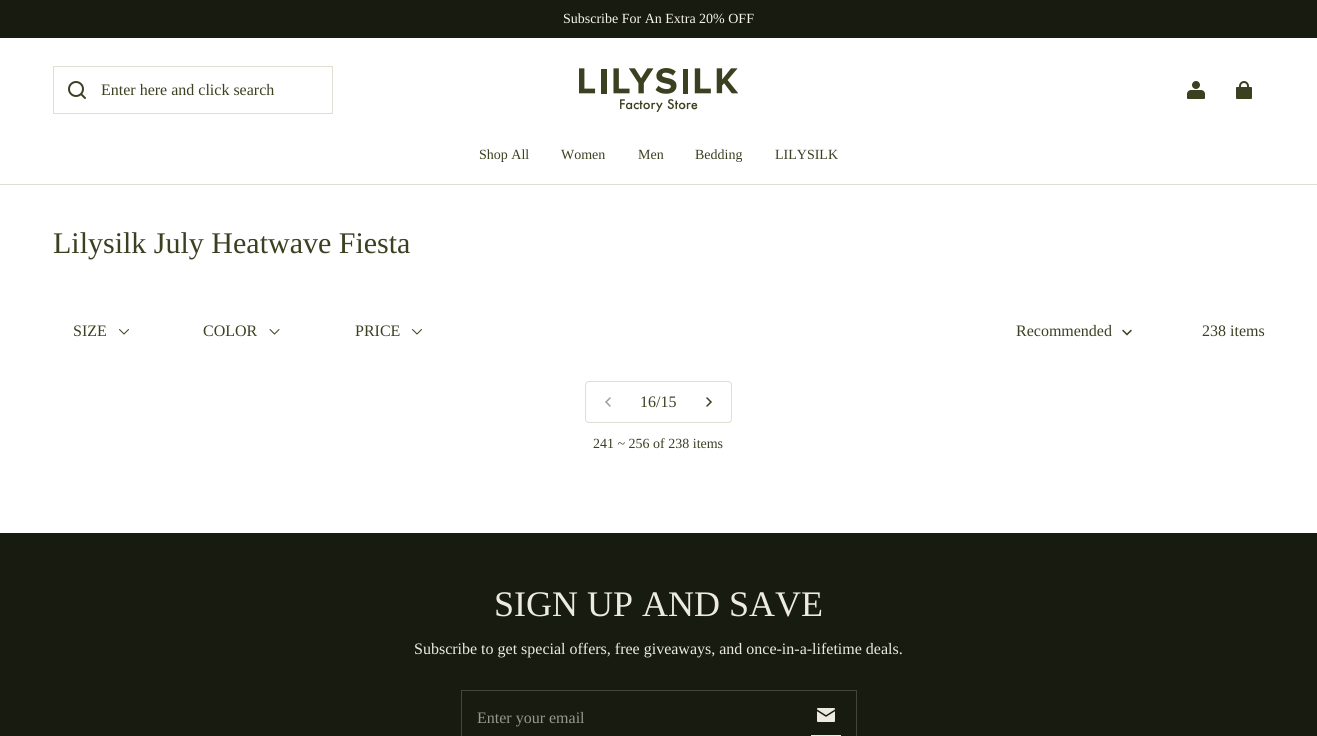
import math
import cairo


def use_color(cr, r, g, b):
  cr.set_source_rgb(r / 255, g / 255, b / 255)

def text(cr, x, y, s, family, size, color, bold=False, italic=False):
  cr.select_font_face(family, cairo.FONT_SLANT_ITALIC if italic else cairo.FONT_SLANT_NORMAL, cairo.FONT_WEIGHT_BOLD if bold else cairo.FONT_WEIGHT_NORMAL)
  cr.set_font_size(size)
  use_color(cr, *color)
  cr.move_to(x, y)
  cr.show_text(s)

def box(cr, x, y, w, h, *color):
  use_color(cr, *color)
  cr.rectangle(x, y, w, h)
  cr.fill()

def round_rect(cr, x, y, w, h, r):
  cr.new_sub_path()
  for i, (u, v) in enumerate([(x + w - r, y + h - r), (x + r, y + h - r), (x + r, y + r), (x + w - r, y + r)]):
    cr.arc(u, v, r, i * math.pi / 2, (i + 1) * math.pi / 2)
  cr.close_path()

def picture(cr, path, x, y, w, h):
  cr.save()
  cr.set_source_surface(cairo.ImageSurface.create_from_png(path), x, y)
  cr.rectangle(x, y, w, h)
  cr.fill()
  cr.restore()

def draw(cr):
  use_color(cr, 255, 255, 255)
  cr.paint()
  box(cr, 0, 0, 1317, 38, 24, 28, 16)
  box(cr, 0, 184, 1317, 1, 224, 222, 211)
  picture(cr, "img_01.png", 68, 81, 18, 18)
  cr.rectangle(53.5, 66.5, 279, 47)
  cr.set_line_width(1)
  cr.stroke()
  picture(cr, "img_02.png", 579, 68, 159, 44)
  picture(cr, "img_03.png", 1187, 81, 18, 18)
  picture(cr, "img_04.png", 1236, 81, 16, 18)
  cr.new_path()
  cr.move_to(119.5, 329.5)
  cr.line_to(124, 334)
  cr.line_to(128.5, 329.5)
  use_color(cr, 59, 64, 33)
  cr.set_line_cap(cairo.LINE_CAP_ROUND)
  cr.stroke()
  cr.new_path()
  cr.move_to(270, 329.5)
  cr.line_to(274.5, 334)
  cr.line_to(279, 329.5)
  cr.stroke()
  cr.new_path()
  cr.move_to(412.5, 329.5)
  cr.line_to(417, 334)
  cr.line_to(421.5, 329.5)
  cr.stroke()
  cr.new_path()
  cr.move_to(1123, 330.5)
  cr.line_to(1127, 334.5)
  cr.line_to(1131, 330.5)
  cr.set_line_width(1.5)
  cr.stroke()
  round_rect(cr, 585.5, 381.5, 146, 41, 3.5)
  use_color(cr, 224, 222, 211)
  cr.set_line_width(1)
  cr.set_line_cap(cairo.LINE_CAP_BUTT)
  cr.stroke()
  cr.new_path()
  cr.move_to(610, 398)
  cr.line_to(606, 402)
  cr.line_to(610, 406)
  use_color(cr, 157, 160, 144)
  cr.set_line_width(1.5)
  cr.set_line_cap(cairo.LINE_CAP_ROUND)
  cr.stroke()
  cr.new_path()
  cr.move_to(707, 406)
  cr.line_to(711, 402)
  cr.line_to(707, 398)
  use_color(cr, 59, 64, 33)
  cr.stroke()
  box(cr, 0, 533, 1317, 203, 24, 28, 16)
  picture(cr, "img_05.png", 817, 708, 18, 14)
  box(cr, 811, 735, 30, 1, 237, 235, 223)
  cr.rectangle(461.5, 690.5, 395, 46)
  use_color(cr, 67, 69, 57)
  cr.set_line_width(1)
  cr.set_line_cap(cairo.LINE_CAP_BUTT)
  cr.stroke()
  text(cr, 563, 23, "Subscribe For An Extra 20% OFF", "Liberation Serif", 14, (246, 244, 231))
  text(cr, 101, 95, "Enter here and click search", "Liberation Serif", 16, (59, 64, 33))
  text(cr, 479, 159, "Shop All", "Liberation Serif", 14, (59, 64, 33))
  text(cr, 561, 159, "Women", "Liberation Serif", 14, (59, 64, 33))
  text(cr, 638, 159, "Men", "Liberation Serif", 14, (59, 64, 33))
  text(cr, 695, 159, "Bedding", "Liberation Serif", 14, (59, 64, 33))
  text(cr, 775, 159, "LILYSILK", "Liberation Serif", 14, (59, 64, 33))
  text(cr, 53, 253, "Lilysilk July Heatwave Fiesta", "Liberation Serif", 30, (59, 64, 33))
  text(cr, 73, 336, "SIZE", "Liberation Serif", 16, (59, 64, 33))
  text(cr, 203, 336, "COLOR", "Liberation Serif", 16, (59, 64, 33))
  text(cr, 355, 336, "PRICE", "Liberation Serif", 16, (59, 64, 33))
  text(cr, 1016, 336, "Recommended", "Liberation Serif", 16, (59, 64, 33))
  text(cr, 1202, 336, "238 items", "Liberation Serif", 16, (59, 64, 33))
  text(cr, 640, 407, "16/15", "Liberation Serif", 16, (59, 64, 33))
  text(cr, 593, 448, "241 ~ 256 of 238 items", "Liberation Serif", 14, (59, 64, 33))
  text(cr, 494, 616, "SIGN UP AND SAVE", "Liberation Serif", 36, (237, 235, 223))
  text(cr, 414, 654, "Subscribe to get special offers, free giveaways, and once-in-a-lifetime deals.", "Liberation Serif", 16, (237, 235, 223))
  text(cr, 477, 723, "Enter your email", "Liberation Serif", 16, (152, 152, 140))


surface = cairo.ImageSurface(cairo.FORMAT_RGB24, 1317, 736)
cr = cairo.Context(surface)
options = cairo.FontOptions()
options.set_hint_metrics(cairo.HINT_METRICS_OFF)
options.set_hint_style(cairo.HINT_STYLE_NONE)
cr.set_font_options(options)
cr.set_miter_limit(4)
draw(cr)
surface.write_to_png("out.png")
